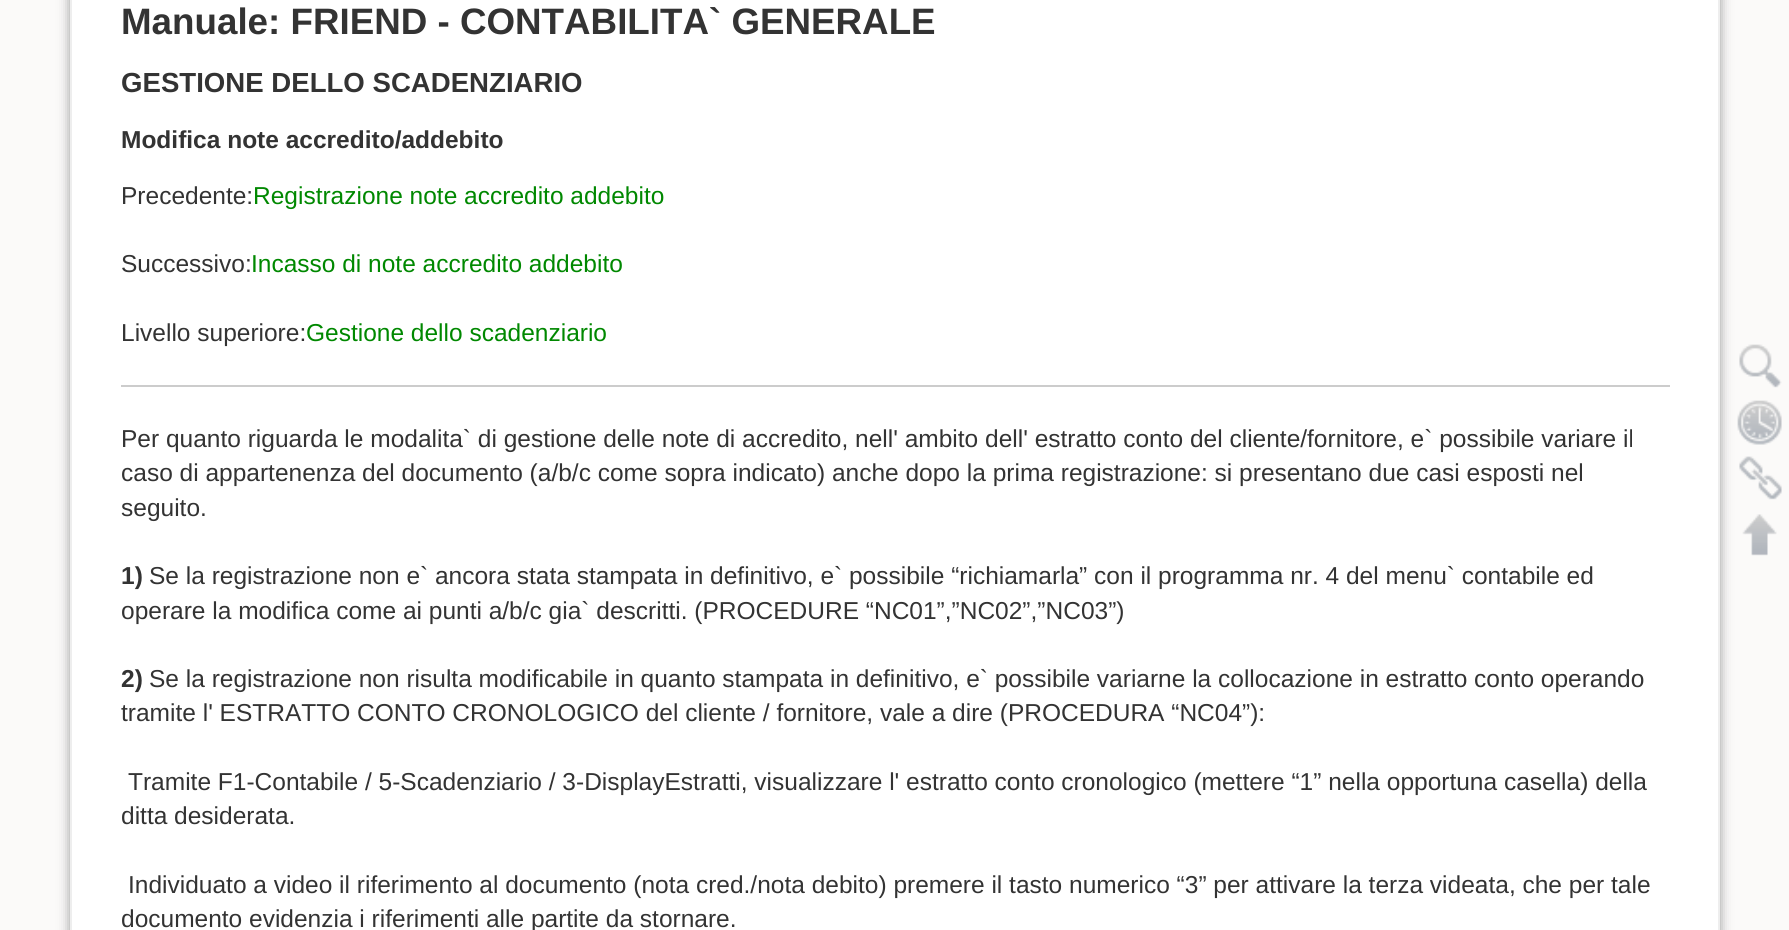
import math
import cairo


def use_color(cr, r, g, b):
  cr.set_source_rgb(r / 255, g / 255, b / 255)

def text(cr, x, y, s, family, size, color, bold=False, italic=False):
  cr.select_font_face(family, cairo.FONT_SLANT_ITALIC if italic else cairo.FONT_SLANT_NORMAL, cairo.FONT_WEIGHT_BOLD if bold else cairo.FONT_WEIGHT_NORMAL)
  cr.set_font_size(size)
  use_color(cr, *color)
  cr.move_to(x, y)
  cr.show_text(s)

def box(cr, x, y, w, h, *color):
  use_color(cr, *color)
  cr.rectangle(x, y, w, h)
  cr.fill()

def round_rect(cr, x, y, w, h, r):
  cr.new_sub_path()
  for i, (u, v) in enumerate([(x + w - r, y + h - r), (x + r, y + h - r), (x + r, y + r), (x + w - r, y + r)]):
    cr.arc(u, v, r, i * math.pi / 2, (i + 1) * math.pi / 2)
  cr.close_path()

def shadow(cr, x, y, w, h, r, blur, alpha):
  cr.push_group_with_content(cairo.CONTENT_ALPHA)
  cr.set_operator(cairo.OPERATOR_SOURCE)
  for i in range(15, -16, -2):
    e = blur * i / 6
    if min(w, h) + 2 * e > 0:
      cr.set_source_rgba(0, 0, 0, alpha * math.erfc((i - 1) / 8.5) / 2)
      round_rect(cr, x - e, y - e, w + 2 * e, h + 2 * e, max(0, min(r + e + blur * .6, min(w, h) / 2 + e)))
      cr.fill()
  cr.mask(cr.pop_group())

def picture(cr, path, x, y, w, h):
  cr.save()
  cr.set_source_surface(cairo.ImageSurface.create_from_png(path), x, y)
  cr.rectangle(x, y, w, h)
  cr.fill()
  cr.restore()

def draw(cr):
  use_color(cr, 251, 250, 249)
  cr.paint()
  use_color(cr, 153, 153, 153)
  shadow(cr, 70, -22, 1650, 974, 4, 6, 1)
  use_color(cr, 255, 255, 255)
  cr.rectangle(71, -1, 1648, 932)
  cr.fill_preserve()
  use_color(cr, 238, 238, 238)
  cr.stroke()
  box(cr, 121, 385, 1549, 2, 204, 204, 204)
  picture(cr, "img_01.png", 1739, 344, 43, 44)
  picture(cr, "img_02.png", 1737, 400, 45, 45)
  picture(cr, "img_03.png", 1739, 456, 43, 44)
  picture(cr, "img_04.png", 1742, 514, 35, 42)
  text(cr, 121, 34, "Manuale: FRIEND - CONTABILITA` GENERALE", "Liberation Sans", 36.75, (51, 51, 51), bold=True)
  text(cr, 121, 92, "GESTIONE DELLO SCADENZIARIO", "Liberation Sans", 27.6, (51, 51, 51), bold=True)
  text(cr, 121, 148, "Modifica note accredito/addebito", "Liberation Sans", 24.5, (51, 51, 51), bold=True)
  text(cr, 121, 204, "Precedente:", "Liberation Sans", 24.5, (51, 51, 51))
  text(cr, 253, 204, "Registrazione note accredito addebito", "Liberation Sans", 24.5, (0, 136, 0))
  text(cr, 121, 272, "Successivo:", "Liberation Sans", 24.5, (51, 51, 51))
  text(cr, 251, 272, "Incasso di note accredito addebito", "Liberation Sans", 24.5, (0, 136, 0))
  text(cr, 121, 341, "Livello superiore:", "Liberation Sans", 24.5, (51, 51, 51))
  text(cr, 306, 341, "Gestione dello scadenziario", "Liberation Sans", 24.5, (0, 136, 0))
  text(cr, 121, 447, "Per quanto riguarda le modalita` di gestione delle note di accredito, nell' ambito dell' estratto conto del cliente/fornitore, e` possibile variare il", "Liberation Sans", 24.5, (51, 51, 51))
  text(cr, 121, 481, "caso di appartenenza del documento (a/b/c come sopra indicato) anche dopo la prima registrazione: si presentano due casi esposti nel", "Liberation Sans", 24.5, (51, 51, 51))
  text(cr, 121, 516, "seguito.", "Liberation Sans", 24.5, (51, 51, 51))
  text(cr, 121, 584, "1)", "Liberation Sans", 24.5, (51, 51, 51), bold=True)
  text(cr, 149, 584, "Se la registrazione non e` ancora stata stampata in definitivo, e` possibile “richiamarla” con il programma nr. 4 del menu` contabile ed", "Liberation Sans", 24.5, (51, 51, 51))
  text(cr, 121, 619, "operare la modifica come ai punti a/b/c gia` descritti. (PROCEDURE “NC01”,”NC02”,”NC03”)", "Liberation Sans", 24.5, (51, 51, 51))
  text(cr, 121, 687, "2)", "Liberation Sans", 24.5, (51, 51, 51), bold=True)
  text(cr, 149, 687, "Se la registrazione non risulta modificabile in quanto stampata in definitivo, e` possibile variarne la collocazione in estratto conto operando", "Liberation Sans", 24.5, (51, 51, 51))
  text(cr, 121, 721, "tramite l' ESTRATTO CONTO CRONOLOGICO del cliente / fornitore, vale a dire (PROCEDURA “NC04”):", "Liberation Sans", 24.5, (51, 51, 51))
  text(cr, 128, 790, "Tramite F1-Contabile / 5-Scadenziario / 3-DisplayEstratti, visualizzare l' estratto conto cronologico (mettere “1” nella opportuna casella) della", "Liberation Sans", 24.5, (51, 51, 51))
  text(cr, 121, 824, "ditta desiderata.", "Liberation Sans", 24.5, (51, 51, 51))
  text(cr, 128, 893, "Individuato a video il riferimento al documento (nota cred./nota debito) premere il tasto numerico “3” per attivare la terza videata, che per tale", "Liberation Sans", 24.5, (51, 51, 51))
  text(cr, 121, 927, "documento evidenzia i riferimenti alle partite da stornare.", "Liberation Sans", 24.5, (51, 51, 51))


surface = cairo.ImageSurface(cairo.FORMAT_RGB24, 1789, 930)
cr = cairo.Context(surface)
options = cairo.FontOptions()
options.set_hint_metrics(cairo.HINT_METRICS_OFF)
options.set_hint_style(cairo.HINT_STYLE_NONE)
cr.set_font_options(options)
cr.set_miter_limit(4)
draw(cr)
surface.write_to_png("out.png")
